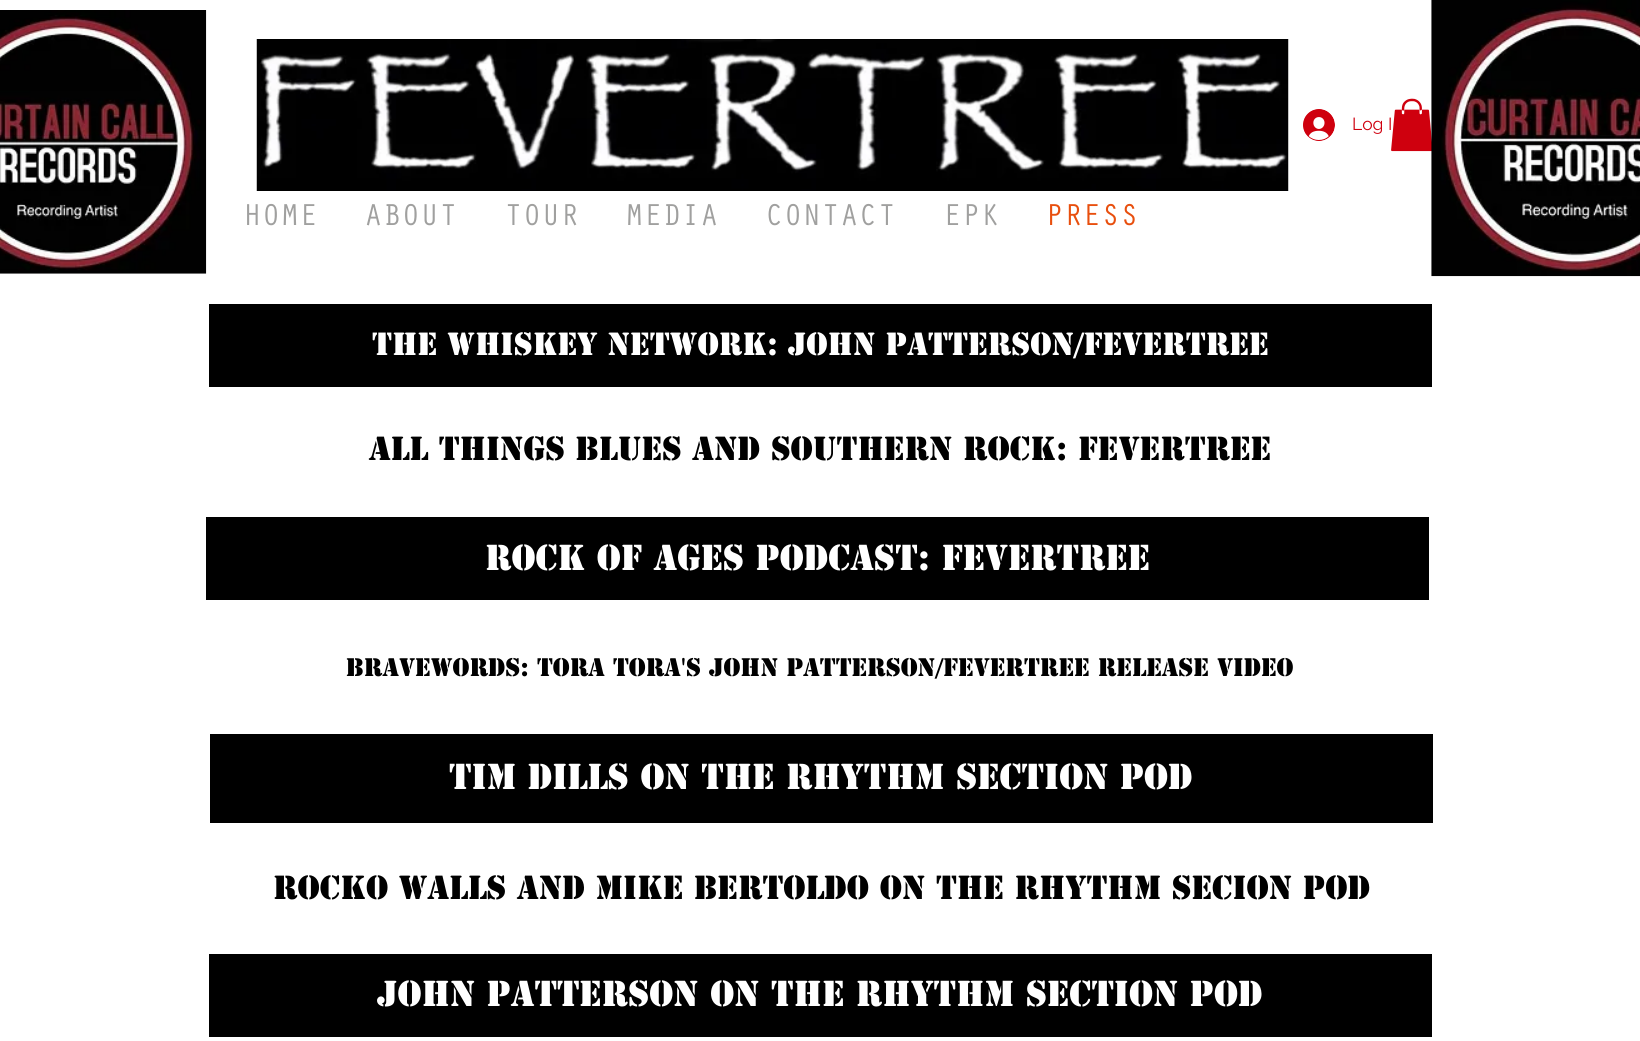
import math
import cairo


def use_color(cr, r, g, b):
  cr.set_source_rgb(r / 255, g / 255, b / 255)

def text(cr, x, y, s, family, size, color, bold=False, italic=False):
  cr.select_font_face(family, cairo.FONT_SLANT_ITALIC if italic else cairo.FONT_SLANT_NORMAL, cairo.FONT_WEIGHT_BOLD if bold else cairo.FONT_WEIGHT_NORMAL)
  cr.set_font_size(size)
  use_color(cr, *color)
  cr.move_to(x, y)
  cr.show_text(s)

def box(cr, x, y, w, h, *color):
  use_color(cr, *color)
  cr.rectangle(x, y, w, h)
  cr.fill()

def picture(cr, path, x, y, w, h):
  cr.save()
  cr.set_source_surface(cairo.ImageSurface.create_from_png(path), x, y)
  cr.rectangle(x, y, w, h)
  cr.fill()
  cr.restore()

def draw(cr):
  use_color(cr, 255, 255, 255)
  cr.paint()
  picture(cr, "img_01.png", 0, 10, 207, 264)
  picture(cr, "img_02.png", 256, 39, 1033, 152)
  picture(cr, "img_03.png", 1303, 109, 32, 32)
  picture(cr, "img_04.png", 1391, 98, 41, 54)
  picture(cr, "img_05.png", 1431, 0, 209, 277)
  box(cr, 209, 304, 1223, 83, 0, 0, 0)
  box(cr, 206, 517, 1223, 83, 0, 0, 0)
  box(cr, 210, 734, 1223, 89, 0, 0, 0)
  box(cr, 209, 954, 1223, 83, 0, 0, 0)
  text(cr, 1352, 130, "Log I", "Raleway", 17.5, (207, 0, 14))
  text(cr, 243, 225, "HOME", "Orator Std", 31.25, (160, 160, 159))
  text(cr, 364, 225, "ABOUT", "Orator Std", 31.25, (160, 160, 159))
  text(cr, 504, 225, "TOUR", "Orator Std", 31.25, (160, 160, 159))
  text(cr, 625, 225, "MEDIA", "Orator Std", 31.25, (160, 160, 159))
  text(cr, 765, 225, "CONTACT", "Orator Std", 31.25, (160, 160, 159))
  text(cr, 943, 225, "EPK", "Orator Std", 31.25, (160, 160, 159))
  text(cr, 1045, 225, "PRESS", "Orator Std", 31.25, (232, 79, 14))
  text(cr, 372, 355, "The Whiskey Network: John Patterson/FEVERTREE", "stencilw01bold", 30, (255, 255, 255), bold=True)
  text(cr, 369, 460, "All Things Blues and Southern Rock: fevertree", "stencilw01bold", 31.25, (0, 0, 0), bold=True)
  text(cr, 485, 570, "Rock of Ages Podcast: fevertree", "stencilw01bold", 33.75, (255, 255, 255), bold=True)
  text(cr, 346, 676, "BraveWords: Tora Tora's John Patterson/FEVERTREE Release Video", "stencilw01bold", 23.75, (0, 0, 0), bold=True)
  text(cr, 449, 789, "Tim Dills on the Rhythm Section Pod", "stencilw01bold", 33.75, (255, 255, 255), bold=True)
  text(cr, 273, 899, "Rocko Walls and Mike Bertoldo on the Rhythm Secion Pod", "stencilw01bold", 31.25, (0, 0, 0), bold=True)
  text(cr, 377, 1006, "John Patterson on the rhythm section pod", "stencilw01bold", 33.75, (255, 255, 255), bold=True)


surface = cairo.ImageSurface(cairo.FORMAT_RGB24, 1640, 1041)
cr = cairo.Context(surface)
options = cairo.FontOptions()
options.set_hint_metrics(cairo.HINT_METRICS_OFF)
options.set_hint_style(cairo.HINT_STYLE_NONE)
cr.set_font_options(options)
cr.set_miter_limit(4)
draw(cr)
surface.write_to_png("out.png")
